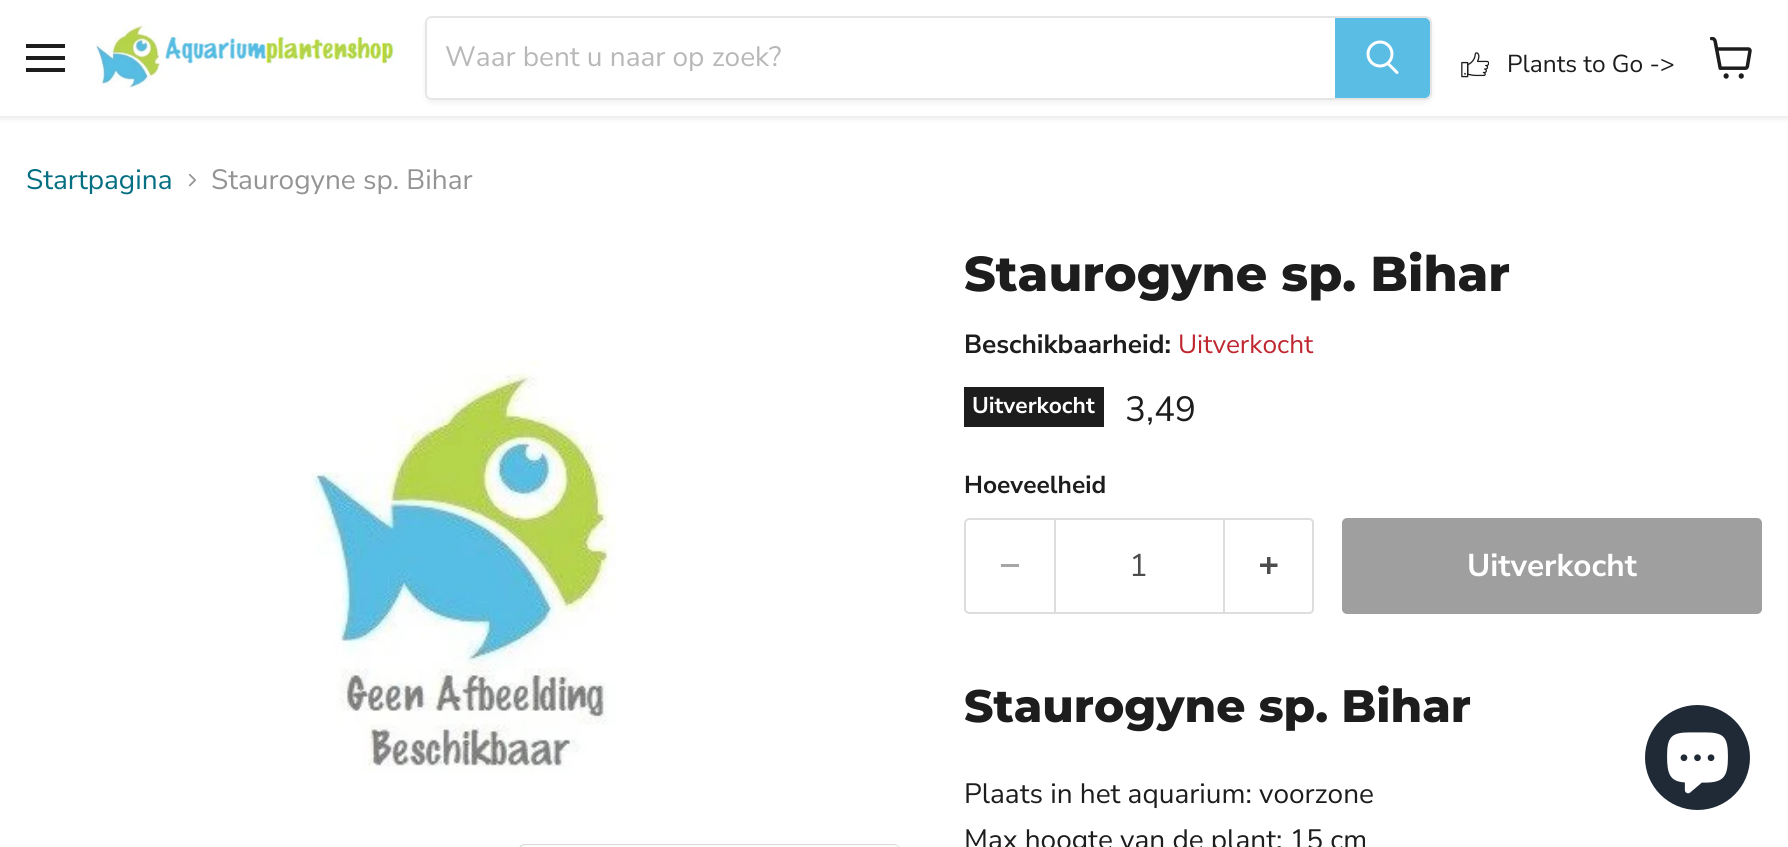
import math
import cairo


def use_color(cr, r, g, b):
  cr.set_source_rgb(r / 255, g / 255, b / 255)

def text(cr, x, y, s, family, size, color, bold=False, italic=False):
  cr.select_font_face(family, cairo.FONT_SLANT_ITALIC if italic else cairo.FONT_SLANT_NORMAL, cairo.FONT_WEIGHT_BOLD if bold else cairo.FONT_WEIGHT_NORMAL)
  cr.set_font_size(size)
  use_color(cr, *color)
  cr.move_to(x, y)
  cr.show_text(s)

def box(cr, x, y, w, h, *color):
  use_color(cr, *color)
  cr.rectangle(x, y, w, h)
  cr.fill()

def round_rect(cr, x, y, w, h, r):
  cr.new_sub_path()
  for i, (u, v) in enumerate([(x + w - r, y + h - r), (x + r, y + h - r), (x + r, y + r), (x + w - r, y + r)]):
    cr.arc(u, v, r, i * math.pi / 2, (i + 1) * math.pi / 2)
  cr.close_path()

def shadow(cr, x, y, w, h, r, blur, alpha):
  cr.push_group_with_content(cairo.CONTENT_ALPHA)
  cr.set_operator(cairo.OPERATOR_SOURCE)
  for i in range(15, -16, -2):
    e = blur * i / 6
    if min(w, h) + 2 * e > 0:
      cr.set_source_rgba(0, 0, 0, alpha * math.erfc((i - 1) / 8.5) / 2)
      round_rect(cr, x - e, y - e, w + 2 * e, h + 2 * e, max(0, min(r + e + blur * .6, min(w, h) / 2 + e)))
      cr.fill()
  cr.mask(cr.pop_group())

def picture(cr, path, x, y, w, h):
  cr.save()
  cr.set_source_surface(cairo.ImageSurface.create_from_png(path), x, y)
  cr.rectangle(x, y, w, h)
  cr.fill()
  cr.restore()

def draw(cr):
  use_color(cr, 255, 255, 255)
  cr.paint()
  use_color(cr, 128, 128, 128)
  shadow(cr, 0, 2, 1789, 115, 0, 3.5, 0.25)
  box(cr, 0, 0, 1788, 116, 255, 255, 255)
  box(cr, 26, 44, 39, 4, 29, 29, 29)
  box(cr, 26, 56, 39, 4, 29, 29, 29)
  box(cr, 26, 68, 39, 4, 29, 29, 29)
  picture(cr, "img_01.png", 96, 24, 300, 64)
  cr.save()
  cr.set_fill_rule(cairo.FILL_RULE_EVEN_ODD)
  cr.new_path()
  cr.move_to(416, 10)
  cr.line_to(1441, 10)
  cr.line_to(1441, 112)
  cr.line_to(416, 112)
  cr.close_path()
  cr.move_to(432, 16)
  cr.line_to(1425, 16)
  cr.curve_to(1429, 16, 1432, 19, 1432, 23)
  cr.line_to(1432, 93)
  cr.curve_to(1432, 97, 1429, 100, 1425, 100)
  cr.line_to(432, 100)
  cr.curve_to(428, 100, 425, 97, 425, 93)
  cr.line_to(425, 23)
  cr.curve_to(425, 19, 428, 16, 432, 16)
  cr.close_path()
  cr.clip()
  use_color(cr, 128, 128, 128)
  shadow(cr, 425, 19, 1007, 84, 7, 2.5, 0.11)
  cr.restore()
  round_rect(cr, 426, 17, 1005, 82, 6)
  cr.set_source_rgba(0.502, 0.502, 0.502, 0.2)
  cr.stroke()
  use_color(cr, 255, 255, 255)
  cr.new_path()
  cr.move_to(432, 18)
  cr.line_to(1335, 18)
  cr.line_to(1335, 98)
  cr.line_to(432, 98)
  cr.curve_to(429, 98, 427, 96, 427, 93)
  cr.line_to(427, 23)
  cr.curve_to(427, 20, 429, 18, 432, 18)
  cr.close_path()
  cr.fill()
  use_color(cr, 89, 189, 228)
  cr.new_path()
  cr.move_to(1336, 19)
  cr.line_to(1425, 19)
  cr.curve_to(1427, 19, 1429, 21, 1429, 23)
  cr.line_to(1429, 93)
  cr.curve_to(1429, 95, 1427, 97, 1425, 97)
  cr.line_to(1336, 97)
  cr.close_path()
  cr.fill_preserve()
  cr.stroke()
  cr.new_path()
  cr.move_to(1397, 72.5)
  cr.line_to(1388.5, 64)
  use_color(cr, 255, 255, 255)
  cr.set_line_width(3)
  cr.set_line_cap(cairo.LINE_CAP_ROUND)
  cr.stroke()
  cr.arc(1380, 54, 12, 0, 2 * math.pi)
  cr.set_line_cap(cairo.LINE_CAP_BUTT)
  cr.stroke()
  picture(cr, "img_02.png", 1461, 52, 28, 26)
  picture(cr, "img_03.png", 1710, 37, 42, 42)
  picture(cr, "img_04.png", 188, 173, 9, 14)
  picture(cr, "img_05.png", 310, 360, 306, 413)
  round_rect(cr, 519, 845, 381, 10, 6)
  use_color(cr, 217, 217, 217)
  cr.set_line_width(2)
  cr.stroke()
  cr.set_source_rgba(1, 1, 1, 0.9)
  round_rect(cr, 520, 845, 380, 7, 5)
  cr.fill()
  box(cr, 964, 387, 140, 40, 29, 29, 29)
  use_color(cr, 221, 221, 221)
  cr.set_fill_rule(cairo.FILL_RULE_EVEN_ODD)
  cr.new_path()
  cr.move_to(970, 518)
  cr.line_to(1054, 518)
  cr.line_to(1054, 614)
  cr.line_to(970, 614)
  cr.curve_to(967, 614, 964, 612, 964, 609)
  cr.line_to(964, 523)
  cr.curve_to(964, 520, 967, 518, 970, 518)
  cr.close_path()
  cr.move_to(970, 520)
  cr.line_to(1054, 520)
  cr.line_to(1054, 612)
  cr.line_to(970, 612)
  cr.curve_to(968, 612, 966, 611, 966, 609)
  cr.line_to(966, 523)
  cr.curve_to(966, 521, 968, 520, 970, 520)
  cr.close_path()
  cr.fill()
  box(cr, 1001, 564, 18, 3, 166, 166, 166)
  cr.rectangle(1055, 519, 169, 94)
  use_color(cr, 221, 221, 221)
  cr.stroke()
  cr.new_path()
  cr.move_to(1225, 518)
  cr.line_to(1309, 518)
  cr.curve_to(1312, 518, 1314, 520, 1314, 523)
  cr.line_to(1314, 609)
  cr.curve_to(1314, 612, 1312, 614, 1309, 614)
  cr.line_to(1225, 614)
  cr.close_path()
  cr.move_to(1225, 520)
  cr.line_to(1309, 520)
  cr.curve_to(1311, 520, 1312, 521, 1312, 523)
  cr.line_to(1312, 609)
  cr.curve_to(1312, 611, 1311, 612, 1309, 612)
  cr.line_to(1225, 612)
  cr.close_path()
  cr.fill()
  picture(cr, "img_06.png", 1260, 557, 18, 17)
  use_color(cr, 159, 159, 159)
  round_rect(cr, 1343, 519, 418, 94, 4)
  cr.fill_preserve()
  cr.stroke()
  use_color(cr, 32, 42, 54)
  cr.arc(1697.5, 757.5, 52.5, 0, 2 * math.pi)
  cr.fill()
  picture(cr, "img_07.png", 1667, 732, 61, 62)
  text(cr, 445, 66, "Waar bent u naar op zoek?", "Nunito Sans", 28, (184, 184, 184))
  text(cr, 1507, 72, "Plants to Go ->", "Nunito Sans", 24.5, (29, 29, 29))
  text(cr, 26, 189, "Startpagina", "Nunito Sans", 28, (4, 110, 130))
  text(cr, 211, 189, "Staurogyne sp. Bihar", "Nunito Sans", 28, (148, 148, 148))
  text(cr, 964, 291, "Staurogyne sp. Bihar", "Montserrat ExtraBold", 49, (29, 29, 29))
  text(cr, 964, 353, "Beschikbaarheid:", "Nunito Sans", 26.25, (29, 29, 29), bold=True)
  text(cr, 1178, 353, "Uitverkocht", "Nunito Sans", 26.25, (191, 38, 47))
  text(cr, 972, 413, "Uitverkocht", "Nunito Sans", 22.75, (255, 255, 255), bold=True)
  text(cr, 1125, 421, "3,49", "Nunito Sans", 35, (29, 29, 29))
  text(cr, 964, 493, "Hoeveelheid", "Nunito Sans", 24.5, (29, 29, 29), bold=True)
  text(cr, 1129, 576, "1", "Nunito Sans", 31.5, (77, 77, 77))
  text(cr, 1467, 576, "Uitverkocht", "Nunito Sans", 31.5, (255, 255, 255), bold=True)
  text(cr, 964, 722, "Staurogyne sp. Bihar", "Montserrat ExtraBold", 45.5, (29, 29, 29))
  text(cr, 964, 803, "Plaats in het aquarium: voorzone", "Nunito Sans", 28, (29, 29, 29))
  text(cr, 964, 849, "Max hoogte van de plant: 15 cm", "Nunito Sans", 28, (29, 29, 29))


surface = cairo.ImageSurface(cairo.FORMAT_RGB24, 1788, 847)
cr = cairo.Context(surface)
options = cairo.FontOptions()
options.set_hint_metrics(cairo.HINT_METRICS_OFF)
options.set_hint_style(cairo.HINT_STYLE_NONE)
cr.set_font_options(options)
cr.set_miter_limit(4)
draw(cr)
surface.write_to_png("out.png")
